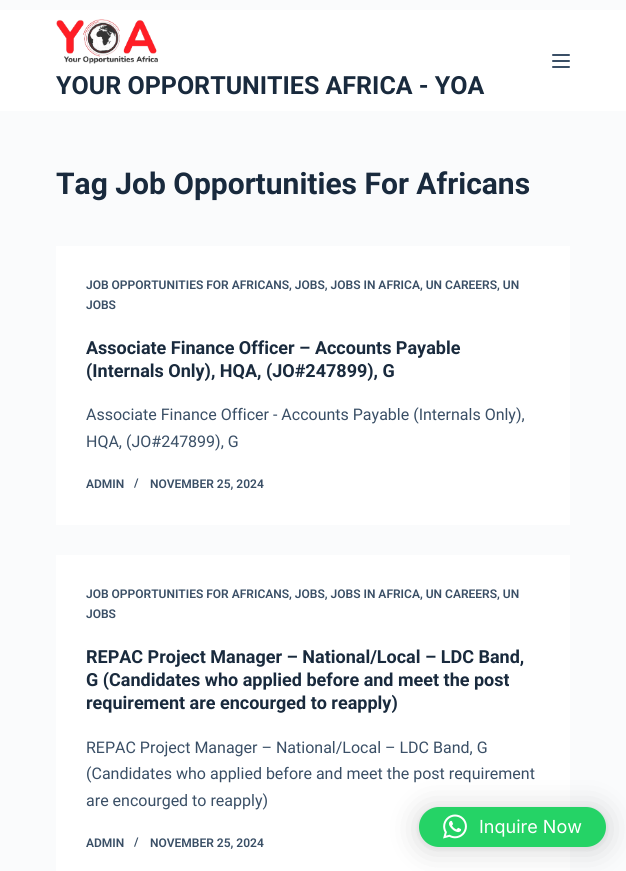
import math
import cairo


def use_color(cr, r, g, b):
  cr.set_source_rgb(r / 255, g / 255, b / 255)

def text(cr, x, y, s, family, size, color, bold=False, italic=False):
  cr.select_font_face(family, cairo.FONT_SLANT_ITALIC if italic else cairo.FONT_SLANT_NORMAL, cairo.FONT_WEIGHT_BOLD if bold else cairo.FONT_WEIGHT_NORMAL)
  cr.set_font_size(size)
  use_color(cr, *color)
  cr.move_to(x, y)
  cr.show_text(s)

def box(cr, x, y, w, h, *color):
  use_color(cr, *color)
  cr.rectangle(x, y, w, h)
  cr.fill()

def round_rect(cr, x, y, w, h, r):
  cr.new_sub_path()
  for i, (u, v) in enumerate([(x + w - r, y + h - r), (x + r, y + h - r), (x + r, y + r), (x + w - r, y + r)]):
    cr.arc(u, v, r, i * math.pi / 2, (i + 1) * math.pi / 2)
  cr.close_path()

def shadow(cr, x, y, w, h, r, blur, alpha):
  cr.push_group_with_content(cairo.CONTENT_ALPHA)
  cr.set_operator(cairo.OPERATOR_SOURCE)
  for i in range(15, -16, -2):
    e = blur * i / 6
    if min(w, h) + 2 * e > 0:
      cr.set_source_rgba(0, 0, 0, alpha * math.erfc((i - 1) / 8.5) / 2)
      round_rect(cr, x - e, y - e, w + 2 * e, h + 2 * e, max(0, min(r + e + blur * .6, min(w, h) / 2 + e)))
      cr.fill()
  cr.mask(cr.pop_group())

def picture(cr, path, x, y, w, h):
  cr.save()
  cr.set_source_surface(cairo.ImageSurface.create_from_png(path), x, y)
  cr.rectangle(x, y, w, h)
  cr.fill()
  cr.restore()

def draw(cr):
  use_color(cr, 250, 251, 252)
  cr.paint()
  box(cr, 0, 10, 626, 101, 255, 255, 255)
  use_color(cr, 58, 79, 102)
  round_rect(cr, 552, 54, 18, 2, 1)
  cr.fill()
  round_rect(cr, 552, 60, 18, 2, 1)
  cr.fill()
  round_rect(cr, 552, 66, 18, 2, 1)
  cr.fill()
  picture(cr, "img_01.png", 56, 19, 102, 45)
  box(cr, 56, 246, 514, 279, 255, 255, 255)
  box(cr, 56, 555, 514, 316, 255, 255, 255)
  use_color(cr, 0, 0, 0)
  shadow(cr, 419, 809, 187, 40, 20, 16, 0.16)
  shadow(cr, 419, 808, 187, 40, 20, 3, 0.06)
  use_color(cr, 37, 211, 102)
  round_rect(cr, 419, 807, 187, 40, 20)
  cr.fill()
  picture(cr, "img_02.png", 443, 814, 24, 25)
  text(cr, 56, 94, "YOUR OPPORTUNITIES AFRICA - YOA", "Roboto", 25, (25, 42, 61), bold=True)
  text(cr, 56, 194, "Tag Job Opportunities For Africans", "Roboto", 30, (25, 42, 61), bold=True)
  text(cr, 86, 289, "JOB OPPORTUNITIES FOR AFRICANS, JOBS, JOBS IN AFRICA, UN CAREERS, UN", "Roboto SemiBold", 12, (58, 79, 102))
  text(cr, 86, 309, "JOBS", "Roboto SemiBold", 12, (58, 79, 102))
  text(cr, 86, 354, "Associate Finance Officer – Accounts Payable", "Roboto", 18, (25, 42, 61), bold=True)
  text(cr, 86, 377, "(Internals Only), HQA, (JO#247899), G", "Roboto", 18, (25, 42, 61), bold=True)
  text(cr, 86, 420, "Associate Finance Officer - Accounts Payable (Internals Only),", "Roboto", 16, (58, 79, 102))
  text(cr, 86, 447, "HQA, (JO#247899), G", "Roboto", 16, (58, 79, 102))
  text(cr, 86, 488, "ADMIN", "Roboto SemiBold", 12, (58, 79, 102))
  text(cr, 134, 487, "/", "Roboto SemiBold", 12, (58, 79, 102))
  text(cr, 150, 488, "NOVEMBER 25, 2024", "Roboto SemiBold", 12, (58, 79, 102))
  text(cr, 86, 598, "JOB OPPORTUNITIES FOR AFRICANS, JOBS, JOBS IN AFRICA, UN CAREERS, UN", "Roboto SemiBold", 12, (58, 79, 102))
  text(cr, 86, 618, "JOBS", "Roboto SemiBold", 12, (58, 79, 102))
  text(cr, 86, 663, "REPAC Project Manager – National/Local – LDC Band,", "Roboto", 18, (25, 42, 61), bold=True)
  text(cr, 86, 686, "G (Candidates who applied before and meet the post", "Roboto", 18, (25, 42, 61), bold=True)
  text(cr, 86, 709, "requirement are encourged to reapply)", "Roboto", 18, (25, 42, 61), bold=True)
  text(cr, 86, 753, "REPAC Project Manager – National/Local – LDC Band, G", "Roboto", 16, (58, 79, 102))
  text(cr, 86, 779, "(Candidates who applied before and meet the post requirement", "Roboto", 16, (58, 79, 102))
  text(cr, 86, 806, "are encourged to reapply)", "Roboto", 16, (58, 79, 102))
  text(cr, 86, 847, "ADMIN", "Roboto SemiBold", 12, (58, 79, 102))
  text(cr, 134, 846, "/", "Roboto SemiBold", 12, (58, 79, 102))
  text(cr, 150, 847, "NOVEMBER 25, 2024", "Roboto SemiBold", 12, (58, 79, 102))
  text(cr, 479, 833, "Inquire Now", "Inter", 18, (255, 255, 255))


surface = cairo.ImageSurface(cairo.FORMAT_RGB24, 626, 871)
cr = cairo.Context(surface)
options = cairo.FontOptions()
options.set_hint_metrics(cairo.HINT_METRICS_OFF)
options.set_hint_style(cairo.HINT_STYLE_NONE)
cr.set_font_options(options)
cr.set_miter_limit(4)
draw(cr)
surface.write_to_png("out.png")
